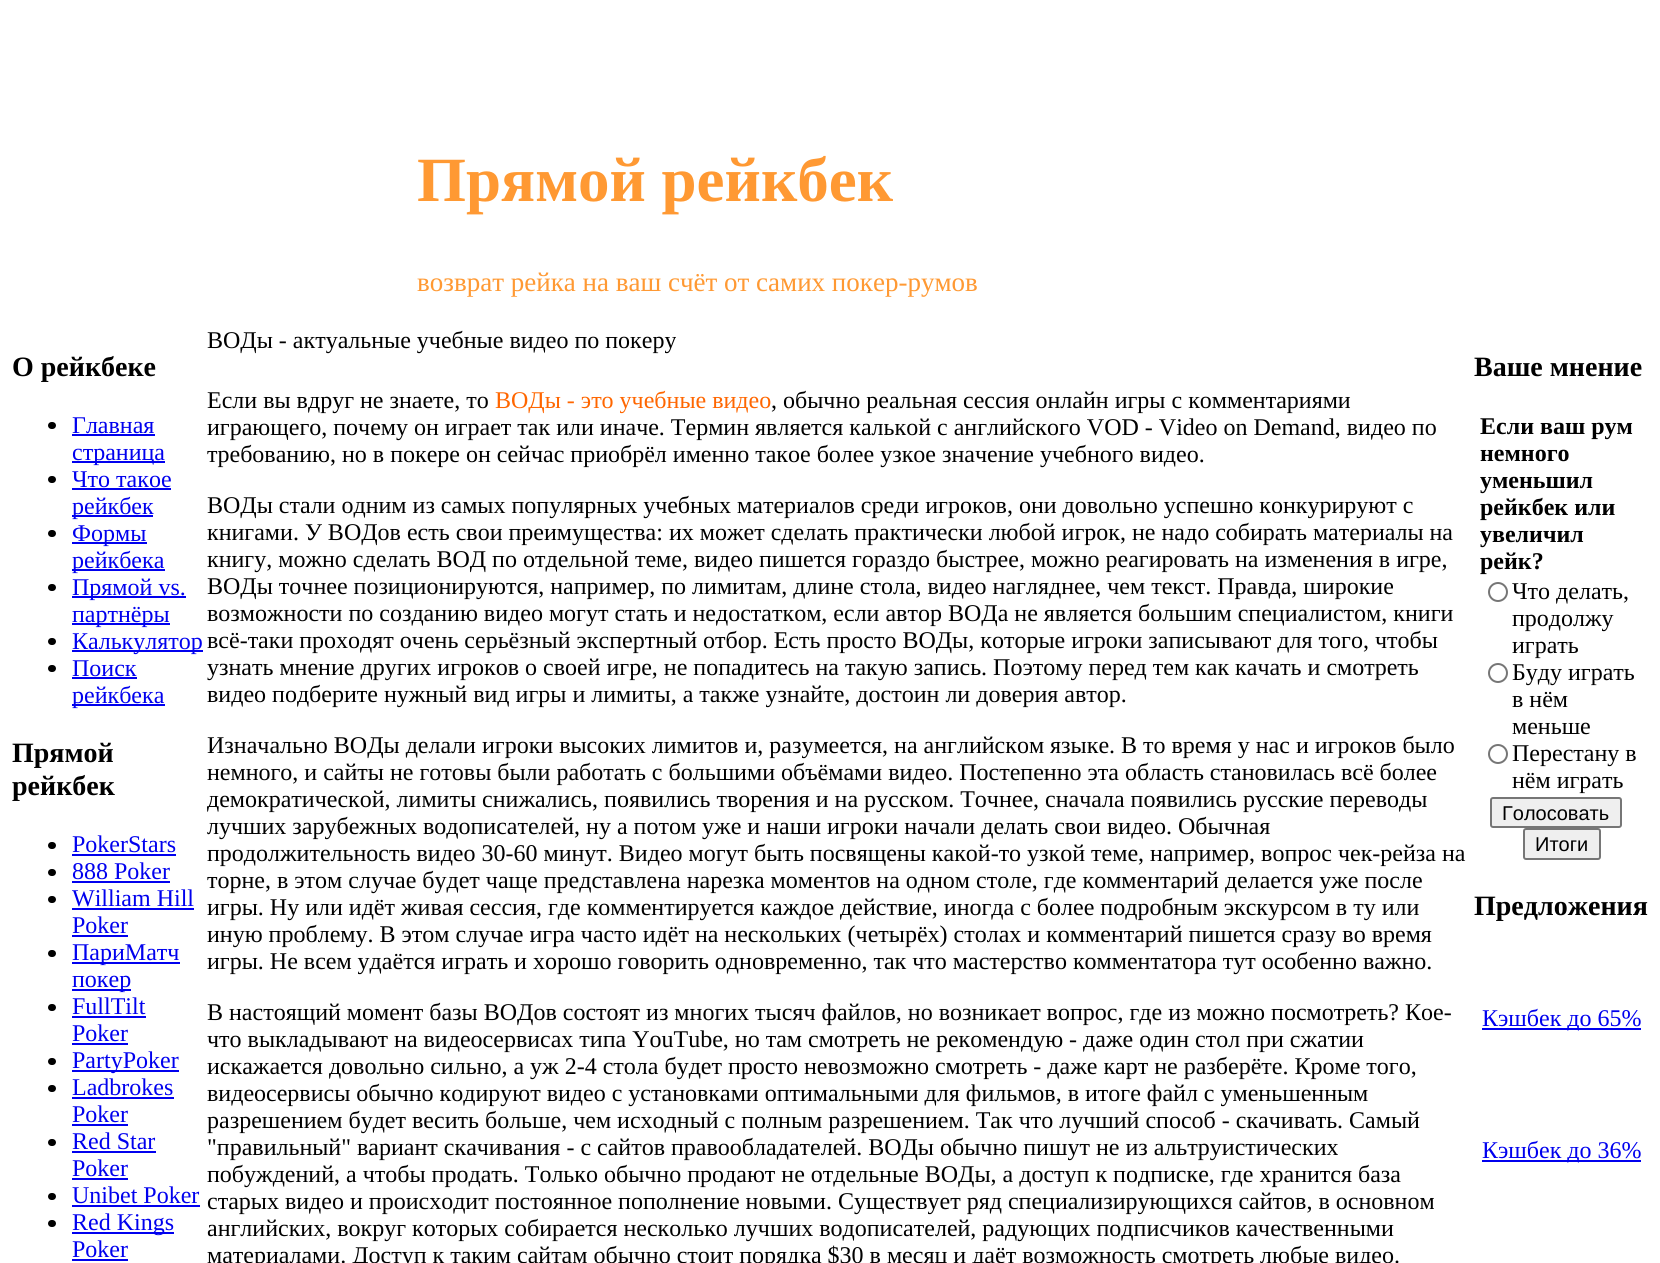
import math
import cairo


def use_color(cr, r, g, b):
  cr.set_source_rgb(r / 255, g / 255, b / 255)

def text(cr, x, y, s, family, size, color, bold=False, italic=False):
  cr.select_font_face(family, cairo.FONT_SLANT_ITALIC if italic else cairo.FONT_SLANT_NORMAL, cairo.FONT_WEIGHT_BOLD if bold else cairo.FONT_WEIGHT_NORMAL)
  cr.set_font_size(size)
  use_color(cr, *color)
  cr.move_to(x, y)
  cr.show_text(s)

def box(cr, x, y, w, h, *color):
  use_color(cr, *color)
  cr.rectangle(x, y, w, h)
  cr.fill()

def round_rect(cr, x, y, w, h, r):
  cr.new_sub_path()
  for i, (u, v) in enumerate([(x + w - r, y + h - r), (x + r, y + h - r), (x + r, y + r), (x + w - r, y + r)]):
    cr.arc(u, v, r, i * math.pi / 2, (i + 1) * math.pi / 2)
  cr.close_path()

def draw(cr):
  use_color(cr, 255, 255, 255)
  cr.paint()
  use_color(cr, 0, 0, 0)
  round_rect(cr, 48, 422, 8, 7, 3.5)
  cr.fill()
  box(cr, 72, 434, 83, 2, 0, 0, 238)
  box(cr, 72, 461, 93, 2, 0, 0, 238)
  use_color(cr, 0, 0, 0)
  round_rect(cr, 48, 476, 8, 7, 3.5)
  cr.fill()
  box(cr, 72, 488, 99, 2, 0, 0, 238)
  box(cr, 72, 515, 81, 2, 0, 0, 238)
  use_color(cr, 0, 0, 0)
  round_rect(cr, 48, 530, 8, 7, 3.5)
  cr.fill()
  box(cr, 72, 542, 75, 2, 0, 0, 238)
  box(cr, 72, 569, 93, 2, 0, 0, 238)
  use_color(cr, 0, 0, 0)
  round_rect(cr, 48, 584, 8, 7, 3.5)
  cr.fill()
  box(cr, 72, 596, 114, 2, 0, 0, 238)
  box(cr, 72, 623, 98, 2, 0, 0, 238)
  use_color(cr, 0, 0, 0)
  round_rect(cr, 48, 638, 8, 7, 3.5)
  cr.fill()
  box(cr, 72, 650, 131, 2, 0, 0, 238)
  use_color(cr, 0, 0, 0)
  round_rect(cr, 48, 665, 8, 7, 3.5)
  cr.fill()
  box(cr, 72, 677, 65, 2, 0, 0, 238)
  box(cr, 72, 704, 93, 2, 0, 0, 238)
  use_color(cr, 0, 0, 0)
  round_rect(cr, 48, 842, 8, 7, 3.5)
  cr.fill()
  box(cr, 72, 854, 104, 2, 0, 0, 238)
  use_color(cr, 0, 0, 0)
  round_rect(cr, 48, 869, 8, 7, 3.5)
  cr.fill()
  box(cr, 72, 881, 98, 2, 0, 0, 238)
  use_color(cr, 0, 0, 0)
  round_rect(cr, 48, 896, 8, 7, 3.5)
  cr.fill()
  box(cr, 72, 908, 122, 2, 0, 0, 238)
  box(cr, 72, 935, 56, 2, 0, 0, 238)
  use_color(cr, 0, 0, 0)
  round_rect(cr, 48, 950, 8, 7, 3.5)
  cr.fill()
  box(cr, 72, 962, 108, 2, 0, 0, 238)
  box(cr, 72, 989, 59, 2, 0, 0, 238)
  use_color(cr, 0, 0, 0)
  round_rect(cr, 48, 1004, 8, 7, 3.5)
  cr.fill()
  box(cr, 72, 1016, 74, 2, 0, 0, 238)
  box(cr, 72, 1043, 56, 2, 0, 0, 238)
  use_color(cr, 0, 0, 0)
  round_rect(cr, 48, 1058, 8, 7, 3.5)
  cr.fill()
  box(cr, 72, 1070, 107, 2, 0, 0, 238)
  use_color(cr, 0, 0, 0)
  round_rect(cr, 48, 1085, 8, 7, 3.5)
  cr.fill()
  box(cr, 72, 1097, 102, 2, 0, 0, 238)
  box(cr, 72, 1124, 56, 2, 0, 0, 238)
  use_color(cr, 0, 0, 0)
  round_rect(cr, 48, 1139, 8, 7, 3.5)
  cr.fill()
  box(cr, 72, 1151, 84, 2, 0, 0, 238)
  box(cr, 72, 1178, 56, 2, 0, 0, 238)
  use_color(cr, 0, 0, 0)
  round_rect(cr, 48, 1193, 8, 7, 3.5)
  cr.fill()
  box(cr, 72, 1205, 128, 2, 0, 0, 238)
  use_color(cr, 0, 0, 0)
  round_rect(cr, 48, 1220, 8, 7, 3.5)
  cr.fill()
  box(cr, 72, 1232, 102, 2, 0, 0, 238)
  box(cr, 72, 1259, 56, 2, 0, 0, 238)
  cr.arc(1498, 592, 9, 0, 2 * math.pi)
  use_color(cr, 118, 118, 118)
  cr.stroke()
  cr.arc(1498, 673, 9, 0, 2 * math.pi)
  cr.stroke()
  cr.arc(1498, 754, 9, 0, 2 * math.pi)
  cr.stroke()
  use_color(cr, 239, 239, 239)
  round_rect(cr, 1491, 798, 130, 29, 2)
  cr.fill_preserve()
  use_color(cr, 118, 118, 118)
  cr.stroke()
  use_color(cr, 239, 239, 239)
  round_rect(cr, 1524, 829, 76, 30, 2)
  cr.fill_preserve()
  use_color(cr, 118, 118, 118)
  cr.stroke()
  box(cr, 1482, 1028, 159, 2, 0, 0, 238)
  box(cr, 1482, 1160, 159, 2, 0, 0, 238)
  text(cr, 417, 201, "Прямой рейкбек", "Liberation Serif", 63, (255, 153, 51), bold=True)
  text(cr, 417, 291, "возврат рейка на ваш счёт от самих покер-румов", "Liberation Serif", 27, (255, 153, 51))
  text(cr, 12, 376, "О рейкбеке", "Liberation Serif", 28, (0, 0, 0), bold=True)
  text(cr, 72, 433, "Главная", "Liberation Serif", 24, (0, 0, 238))
  text(cr, 72, 460, "страница", "Liberation Serif", 24, (0, 0, 238))
  text(cr, 72, 487, "Что такое", "Liberation Serif", 24, (0, 0, 238))
  text(cr, 72, 514, "рейкбек", "Liberation Serif", 24, (0, 0, 238))
  text(cr, 72, 541, "Формы", "Liberation Serif", 24, (0, 0, 238))
  text(cr, 72, 568, "рейкбека", "Liberation Serif", 24, (0, 0, 238))
  text(cr, 72, 595, "Прямой vs.", "Liberation Serif", 24, (0, 0, 238))
  text(cr, 72, 622, "партнёры", "Liberation Serif", 24, (0, 0, 238))
  text(cr, 72, 649, "Калькулятор", "Liberation Serif", 24, (0, 0, 238))
  text(cr, 72, 676, "Поиск", "Liberation Serif", 24, (0, 0, 238))
  text(cr, 72, 703, "рейкбека", "Liberation Serif", 24, (0, 0, 238))
  text(cr, 12, 762, "Прямой", "Liberation Serif", 28, (0, 0, 0), bold=True)
  text(cr, 12, 795, "рейкбек", "Liberation Serif", 28, (0, 0, 0), bold=True)
  text(cr, 72, 852, "PokerStars", "Liberation Serif", 24, (0, 0, 238))
  text(cr, 72, 879, "888 Poker", "Liberation Serif", 24, (0, 0, 238))
  text(cr, 72, 906, "William Hill", "Liberation Serif", 24, (0, 0, 238))
  text(cr, 72, 933, "Poker", "Liberation Serif", 24, (0, 0, 238))
  text(cr, 72, 960, "ПариМатч", "Liberation Serif", 24, (0, 0, 238))
  text(cr, 72, 987, "покер", "Liberation Serif", 24, (0, 0, 238))
  text(cr, 72, 1014, "FullTilt", "Liberation Serif", 24, (0, 0, 238))
  text(cr, 72, 1041, "Poker", "Liberation Serif", 24, (0, 0, 238))
  text(cr, 72, 1068, "PartyPoker", "Liberation Serif", 24, (0, 0, 238))
  text(cr, 72, 1095, "Ladbrokes", "Liberation Serif", 24, (0, 0, 238))
  text(cr, 72, 1122, "Poker", "Liberation Serif", 24, (0, 0, 238))
  text(cr, 72, 1149, "Red Star", "Liberation Serif", 24, (0, 0, 238))
  text(cr, 72, 1176, "Poker", "Liberation Serif", 24, (0, 0, 238))
  text(cr, 72, 1203, "Unibet Poker", "Liberation Serif", 24, (0, 0, 238))
  text(cr, 72, 1230, "Red Kings", "Liberation Serif", 24, (0, 0, 238))
  text(cr, 72, 1257, "Poker", "Liberation Serif", 24, (0, 0, 238))
  text(cr, 207, 348, "ВОДы - актуальные учебные видео по покеру", "Liberation Serif", 24, (0, 0, 0))
  text(cr, 207, 408, "Если вы вдруг не знаете, то", "Liberation Serif", 24, (0, 0, 0))
  text(cr, 495, 408, "ВОДы - это учебные видео", "Liberation Serif", 24, (255, 102, 0))
  text(cr, 771, 408, ", обычно реальная сессия онлайн игры с комментариями", "Liberation Serif", 24, (0, 0, 0))
  text(cr, 207, 435, "играющего, почему он играет так или иначе. Термин является калькой с английского VOD - Video on Demand, видео по", "Liberation Serif", 24, (0, 0, 0))
  text(cr, 207, 462, "требованию, но в покере он сейчас приобрёл именно такое более узкое значение учебного видео.", "Liberation Serif", 24, (0, 0, 0))
  text(cr, 207, 513, "ВОДы стали одним из самых популярных учебных материалов среди игроков, они довольно успешно конкурируют с", "Liberation Serif", 24, (0, 0, 0))
  text(cr, 207, 540, "книгами. У ВОДов есть свои преимущества: их может сделать практически любой игрок, не надо собирать материалы на", "Liberation Serif", 24, (0, 0, 0))
  text(cr, 207, 567, "книгу, можно сделать ВОД по отдельной теме, видео пишется гораздо быстрее, можно реагировать на изменения в игре,", "Liberation Serif", 24, (0, 0, 0))
  text(cr, 207, 594, "ВОДы точнее позиционируются, например, по лимитам, длине стола, видео нагляднее, чем текст. Правда, широкие", "Liberation Serif", 24, (0, 0, 0))
  text(cr, 207, 621, "возможности по созданию видео могут стать и недостатком, если автор ВОДа не является большим специалистом, книги", "Liberation Serif", 24, (0, 0, 0))
  text(cr, 207, 648, "всё-таки проходят очень серьёзный экспертный отбор. Есть просто ВОДы, которые игроки записывают для того, чтобы", "Liberation Serif", 24, (0, 0, 0))
  text(cr, 207, 675, "узнать мнение других игроков о своей игре, не попадитесь на такую запись. Поэтому перед тем как качать и смотреть", "Liberation Serif", 24, (0, 0, 0))
  text(cr, 207, 702, "видео подберите нужный вид игры и лимиты, а также узнайте, достоин ли доверия автор.", "Liberation Serif", 24, (0, 0, 0))
  text(cr, 207, 753, "Изначально ВОДы делали игроки высоких лимитов и, разумеется, на английском языке. В то время у нас и игроков было", "Liberation Serif", 24, (0, 0, 0))
  text(cr, 207, 780, "немного, и сайты не готовы были работать с большими объёмами видео. Постепенно эта область становилась всё более", "Liberation Serif", 24, (0, 0, 0))
  text(cr, 207, 807, "демократической, лимиты снижались, появились творения и на русском. Точнее, сначала появились русские переводы", "Liberation Serif", 24, (0, 0, 0))
  text(cr, 207, 834, "лучших зарубежных водописателей, ну а потом уже и наши игроки начали делать свои видео. Обычная", "Liberation Serif", 24, (0, 0, 0))
  text(cr, 207, 861, "продолжительность видео 30-60 минут. Видео могут быть посвящены какой-то узкой теме, например, вопрос чек-рейза на", "Liberation Serif", 24, (0, 0, 0))
  text(cr, 207, 888, "торне, в этом случае будет чаще представлена нарезка моментов на одном столе, где комментарий делается уже после", "Liberation Serif", 24, (0, 0, 0))
  text(cr, 207, 915, "игры. Ну или идёт живая сессия, где комментируется каждое действие, иногда с более подробным экскурсом в ту или", "Liberation Serif", 24, (0, 0, 0))
  text(cr, 207, 942, "иную проблему. В этом случае игра часто идёт на нескольких (четырёх) столах и комментарий пишется сразу во время", "Liberation Serif", 24, (0, 0, 0))
  text(cr, 207, 969, "игры. Не всем удаётся играть и хорошо говорить одновременно, так что мастерство комментатора тут особенно важно.", "Liberation Serif", 24, (0, 0, 0))
  text(cr, 207, 1020, "В настоящий момент базы ВОДов состоят из многих тысяч файлов, но возникает вопрос, где из можно посмотреть? Кое-", "Liberation Serif", 24, (0, 0, 0))
  text(cr, 207, 1047, "что выкладывают на видеосервисах типа YouTube, но там смотреть не рекомендую - даже один стол при сжатии", "Liberation Serif", 24, (0, 0, 0))
  text(cr, 207, 1074, "искажается довольно сильно, а уж 2-4 стола будет просто невозможно смотреть - даже карт не разберёте. Кроме того,", "Liberation Serif", 24, (0, 0, 0))
  text(cr, 207, 1101, "видеосервисы обычно кодируют видео с установками оптимальными для фильмов, в итоге файл с уменьшенным", "Liberation Serif", 24, (0, 0, 0))
  text(cr, 207, 1128, "разрешением будет весить больше, чем исходный с полным разрешением. Так что лучший способ - скачивать. Самый", "Liberation Serif", 24, (0, 0, 0))
  text(cr, 207, 1155, "\"правильный\" вариант скачивания - с сайтов правообладателей. ВОДы обычно пишут не из альтруистических", "Liberation Serif", 24, (0, 0, 0))
  text(cr, 207, 1182, "побуждений, а чтобы продать. Только обычно продают не отдельные ВОДы, а доступ к подписке, где хранится база", "Liberation Serif", 24, (0, 0, 0))
  text(cr, 207, 1209, "старых видео и происходит постоянное пополнение новыми. Существует ряд специализирующихся сайтов, в основном", "Liberation Serif", 24, (0, 0, 0))
  text(cr, 207, 1236, "английских, вокруг которых собирается несколько лучших водописателей, радующих подписчиков качественными", "Liberation Serif", 24, (0, 0, 0))
  text(cr, 207, 1263, "материалами. Доступ к таким сайтам обычно стоит порядка $30 в месяц и даёт возможность смотреть любые видео.", "Liberation Serif", 24, (0, 0, 0))
  text(cr, 1474, 376, "Ваше мнение", "Liberation Serif", 28, (0, 0, 0), bold=True)
  text(cr, 1480, 434, "Если ваш рум", "Liberation Serif", 24, (0, 0, 0), bold=True)
  text(cr, 1480, 461, "немного", "Liberation Serif", 24, (0, 0, 0), bold=True)
  text(cr, 1480, 488, "уменьшил", "Liberation Serif", 24, (0, 0, 0), bold=True)
  text(cr, 1480, 515, "рейкбек или", "Liberation Serif", 24, (0, 0, 0), bold=True)
  text(cr, 1480, 542, "увеличил", "Liberation Serif", 24, (0, 0, 0), bold=True)
  text(cr, 1480, 569, "рейк?", "Liberation Serif", 24, (0, 0, 0), bold=True)
  text(cr, 1512, 599, "Что делать,", "Liberation Serif", 24, (0, 0, 0))
  text(cr, 1512, 626, "продолжу", "Liberation Serif", 24, (0, 0, 0))
  text(cr, 1512, 653, "играть", "Liberation Serif", 24, (0, 0, 0))
  text(cr, 1512, 680, "Буду играть", "Liberation Serif", 24, (0, 0, 0))
  text(cr, 1512, 707, "в нём", "Liberation Serif", 24, (0, 0, 0))
  text(cr, 1512, 734, "меньше", "Liberation Serif", 24, (0, 0, 0))
  text(cr, 1512, 761, "Перестану в", "Liberation Serif", 24, (0, 0, 0))
  text(cr, 1512, 788, "нём играть", "Liberation Serif", 24, (0, 0, 0))
  text(cr, 1502, 820, "Голосовать", "Liberation Sans", 20, (0, 0, 0))
  text(cr, 1535, 851, "Итоги", "Liberation Sans", 20, (0, 0, 0))
  text(cr, 1474, 915, "Предложения", "Liberation Serif", 28, (0, 0, 0), bold=True)
  text(cr, 1482, 1026, "Кэшбек до 65%", "Liberation Serif", 24, (0, 0, 238))
  text(cr, 1482, 1158, "Кэшбек до 36%", "Liberation Serif", 24, (0, 0, 238))


surface = cairo.ImageSurface(cairo.FORMAT_RGB24, 1660, 1263)
cr = cairo.Context(surface)
options = cairo.FontOptions()
options.set_hint_metrics(cairo.HINT_METRICS_OFF)
options.set_hint_style(cairo.HINT_STYLE_NONE)
cr.set_font_options(options)
cr.set_miter_limit(4)
draw(cr)
surface.write_to_png("out.png")
